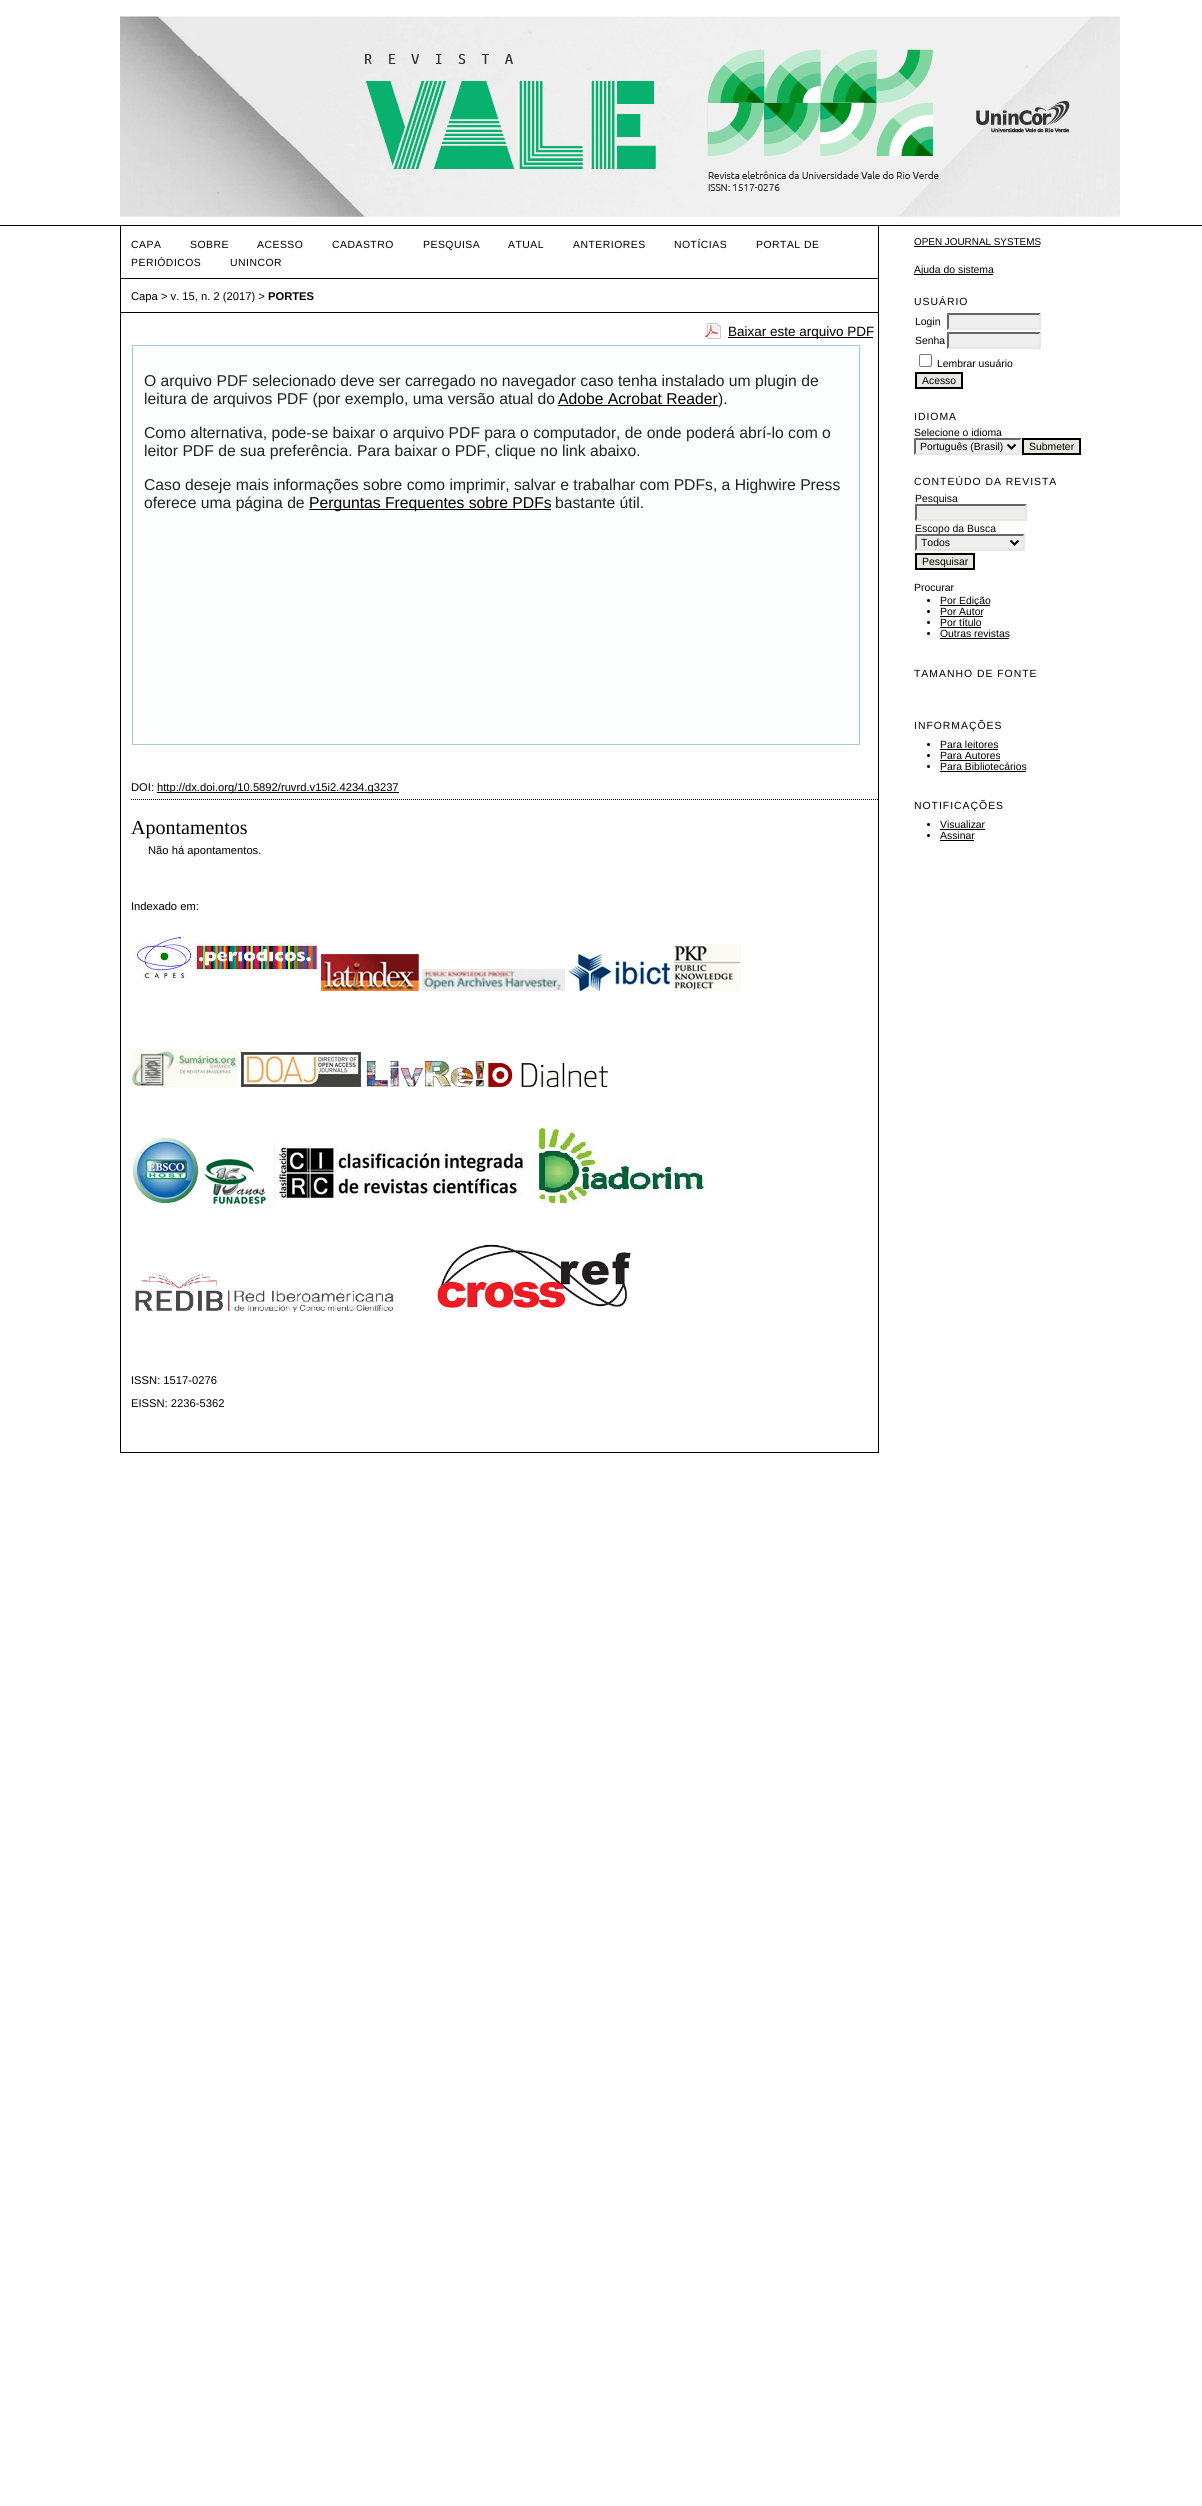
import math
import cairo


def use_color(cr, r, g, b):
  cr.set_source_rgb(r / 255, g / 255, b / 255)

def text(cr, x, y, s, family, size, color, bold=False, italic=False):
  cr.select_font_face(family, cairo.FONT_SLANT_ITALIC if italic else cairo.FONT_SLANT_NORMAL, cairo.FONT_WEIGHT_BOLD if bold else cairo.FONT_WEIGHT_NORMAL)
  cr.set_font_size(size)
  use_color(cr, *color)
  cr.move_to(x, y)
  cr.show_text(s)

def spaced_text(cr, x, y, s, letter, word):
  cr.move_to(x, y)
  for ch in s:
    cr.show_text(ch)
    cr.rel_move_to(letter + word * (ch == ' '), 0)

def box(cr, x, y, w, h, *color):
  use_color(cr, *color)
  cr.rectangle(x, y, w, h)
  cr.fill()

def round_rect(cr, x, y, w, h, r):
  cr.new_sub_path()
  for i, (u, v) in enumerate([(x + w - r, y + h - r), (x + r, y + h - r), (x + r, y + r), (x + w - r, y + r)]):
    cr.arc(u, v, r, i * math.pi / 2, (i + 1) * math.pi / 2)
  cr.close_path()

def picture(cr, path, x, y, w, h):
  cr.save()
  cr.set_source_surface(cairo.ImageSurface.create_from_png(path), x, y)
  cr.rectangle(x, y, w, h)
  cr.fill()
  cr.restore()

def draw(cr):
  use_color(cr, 255, 255, 255)
  cr.paint()
  box(cr, 0, 225, 1202, 1, 0, 0, 0)
  picture(cr, "img_01.png", 120, 16, 1000, 201)
  box(cr, 878, 226, 1, 1227, 0, 0, 0)
  box(cr, 120, 1452, 759, 1, 0, 0, 0)
  box(cr, 120, 226, 1, 1227, 0, 0, 0)
  box(cr, 121, 278, 757, 1, 0, 0, 0)
  box(cr, 121, 312, 757, 1, 0, 0, 0)
  picture(cr, "img_02.png", 705, 323, 16, 16)
  box(cr, 728, 337, 145, 1, 0, 0, 0)
  use_color(cr, 252, 253, 253)
  cr.rectangle(132.5, 345.5, 727, 399)
  cr.fill_preserve()
  use_color(cr, 166, 201, 226)
  cr.set_line_width(1)
  cr.stroke()
  box(cr, 558, 405, 160, 1, 0, 0, 0)
  box(cr, 309, 509, 242, 1, 0, 0, 0)
  box(cr, 157, 792, 242, 1, 0, 0, 0)
  cr.new_path()
  cr.move_to(131, 799.5)
  cr.line_to(878, 799.5)
  cr.set_dash([1, 1])
  cr.stroke()
  picture(cr, "img_03.png", 135, 935, 183, 44)
  picture(cr, "img_04.png", 321, 954, 98, 37)
  picture(cr, "img_05.png", 422, 969, 143, 22)
  picture(cr, "img_06.png", 569, 954, 101, 37)
  picture(cr, "img_07.png", 673, 944, 68, 47)
  picture(cr, "img_08.png", 131, 1050, 107, 37)
  picture(cr, "img_09.png", 241, 1052, 120, 35)
  picture(cr, "img_10.png", 366, 1061, 118, 26)
  picture(cr, "img_11.png", 488, 1063, 120, 24)
  picture(cr, "img_12.png", 133, 1138, 66, 66)
  picture(cr, "img_13.png", 204, 1159, 62, 45)
  picture(cr, "img_14.png", 274, 1138, 251, 66)
  picture(cr, "img_15.png", 535, 1124, 172, 80)
  picture(cr, "img_16.png", 135, 1273, 259, 39)
  picture(cr, "img_17.png", 437, 1244, 194, 64)
  box(cr, 914, 246, 126, 1, 0, 0, 0)
  box(cr, 914, 274, 79, 1, 0, 0, 0)
  box(cr, 947, 313, 94, 17, 238, 238, 238)
  use_color(cr, 102, 102, 102)
  cr.new_path()
  cr.move_to(947, 313)
  cr.line_to(1041, 313)
  cr.line_to(1039, 315)
  cr.line_to(949, 315)
  cr.close_path()
  cr.fill()
  use_color(cr, 232, 232, 225)
  cr.new_path()
  cr.move_to(1041, 313)
  cr.line_to(1041, 330)
  cr.line_to(1039, 328)
  cr.line_to(1039, 315)
  cr.close_path()
  cr.fill()
  cr.new_path()
  cr.move_to(1041, 330)
  cr.line_to(947, 330)
  cr.line_to(949, 328)
  cr.line_to(1039, 328)
  cr.close_path()
  cr.fill()
  use_color(cr, 102, 102, 102)
  cr.new_path()
  cr.move_to(947, 330)
  cr.line_to(947, 313)
  cr.line_to(949, 315)
  cr.line_to(949, 328)
  cr.close_path()
  cr.fill()
  box(cr, 947, 332, 94, 17, 238, 238, 238)
  use_color(cr, 102, 102, 102)
  cr.new_path()
  cr.move_to(947, 332)
  cr.line_to(1041, 332)
  cr.line_to(1039, 334)
  cr.line_to(949, 334)
  cr.close_path()
  cr.fill()
  use_color(cr, 232, 232, 225)
  cr.new_path()
  cr.move_to(1041, 332)
  cr.line_to(1041, 349)
  cr.line_to(1039, 347)
  cr.line_to(1039, 334)
  cr.close_path()
  cr.fill()
  cr.new_path()
  cr.move_to(1041, 349)
  cr.line_to(947, 349)
  cr.line_to(949, 347)
  cr.line_to(1039, 347)
  cr.close_path()
  cr.fill()
  use_color(cr, 102, 102, 102)
  cr.new_path()
  cr.move_to(947, 349)
  cr.line_to(947, 332)
  cr.line_to(949, 334)
  cr.line_to(949, 347)
  cr.close_path()
  cr.fill()
  round_rect(cr, 919.5, 354.5, 12, 12, 1.5)
  use_color(cr, 118, 118, 118)
  cr.set_dash([])
  cr.stroke()
  use_color(cr, 232, 232, 225)
  cr.rectangle(916, 373, 46, 15)
  cr.fill_preserve()
  use_color(cr, 0, 0, 0)
  cr.set_line_width(2)
  cr.stroke()
  box(cr, 914, 438, 108, 17, 238, 238, 238)
  use_color(cr, 102, 102, 102)
  cr.new_path()
  cr.move_to(914, 438)
  cr.line_to(1022, 438)
  cr.line_to(1020, 440)
  cr.line_to(916, 440)
  cr.close_path()
  cr.fill()
  use_color(cr, 232, 232, 225)
  cr.new_path()
  cr.move_to(1022, 438)
  cr.line_to(1022, 455)
  cr.line_to(1020, 453)
  cr.line_to(1020, 440)
  cr.close_path()
  cr.fill()
  cr.new_path()
  cr.move_to(1022, 455)
  cr.line_to(914, 455)
  cr.line_to(916, 453)
  cr.line_to(1020, 453)
  cr.close_path()
  cr.fill()
  use_color(cr, 102, 102, 102)
  cr.new_path()
  cr.move_to(914, 455)
  cr.line_to(914, 438)
  cr.line_to(916, 440)
  cr.line_to(916, 453)
  cr.close_path()
  cr.fill()
  cr.new_path()
  cr.move_to(1007.5, 444.5)
  cr.line_to(1011.5, 448.5)
  cr.line_to(1015.5, 444.5)
  use_color(cr, 0, 0, 0)
  cr.stroke()
  use_color(cr, 232, 232, 225)
  cr.rectangle(1023, 439, 57, 15)
  cr.fill_preserve()
  use_color(cr, 0, 0, 0)
  cr.stroke()
  use_color(cr, 232, 232, 225)
  cr.rectangle(916, 554, 58, 15)
  cr.fill_preserve()
  use_color(cr, 0, 0, 0)
  cr.stroke()
  cr.arc(928.5, 600.5, 1.5, 0, 2 * math.pi)
  cr.fill()
  box(cr, 940, 605, 50, 1, 0, 0, 0)
  cr.arc(928.5, 611.5, 1.5, 0, 2 * math.pi)
  cr.fill()
  box(cr, 940, 616, 43, 1, 0, 0, 0)
  cr.arc(928.5, 622.5, 1.5, 0, 2 * math.pi)
  cr.fill()
  box(cr, 940, 627, 41, 1, 0, 0, 0)
  cr.arc(928.5, 633.5, 1.5, 0, 2 * math.pi)
  cr.fill()
  box(cr, 940, 638, 69, 1, 0, 0, 0)
  cr.arc(928.5, 744.5, 1.5, 0, 2 * math.pi)
  cr.fill()
  box(cr, 940, 749, 58, 1, 0, 0, 0)
  cr.arc(928.5, 755.5, 1.5, 0, 2 * math.pi)
  cr.fill()
  box(cr, 940, 760, 60, 1, 0, 0, 0)
  cr.arc(928.5, 766.5, 1.5, 0, 2 * math.pi)
  cr.fill()
  box(cr, 940, 771, 86, 1, 0, 0, 0)
  cr.arc(928.5, 824.5, 1.5, 0, 2 * math.pi)
  cr.fill()
  box(cr, 940, 829, 45, 1, 0, 0, 0)
  cr.arc(928.5, 835.5, 1.5, 0, 2 * math.pi)
  cr.fill()
  box(cr, 940, 840, 34, 1, 0, 0, 0)
  cr.select_font_face("Liberation Sans")
  cr.set_font_size(10.4)
  spaced_text(cr, 131, 248, "CAPA", 0.5, 0)
  spaced_text(cr, 190, 248, "SOBRE", 0.5, 0)
  spaced_text(cr, 257, 248, "ACESSO", 0.5, 0)
  spaced_text(cr, 332, 248, "CADASTRO", 0.5, 0)
  spaced_text(cr, 423, 248, "PESQUISA", 0.5, 0)
  spaced_text(cr, 508, 248, "ATUAL", 0.5, 0)
  spaced_text(cr, 573, 248, "ANTERIORES", 0.5, 0)
  spaced_text(cr, 674, 248, "NOTÍCIAS", 0.5, 0)
  spaced_text(cr, 756, 248, "PORTAL DE", 0.5, 0)
  spaced_text(cr, 131, 266, "PERIÓDICOS", 0.5, 0)
  spaced_text(cr, 230, 266, "UNINCOR", 0.5, 0)
  text(cr, 131, 300, "Capa > v. 15, n. 2 (2017) >", "Liberation Sans", 11.2, (0, 0, 0))
  text(cr, 268, 300, "PORTES", "Liberation Sans", 11.2, (0, 0, 0), bold=True)
  text(cr, 728, 336, "Baixar este arquivo PDF", "Liberation Sans", 13.5, (0, 0, 0))
  text(cr, 144, 386, "O arquivo PDF selecionado deve ser carregado no navegador caso tenha instalado um plugin de", "Liberation Sans", 15.7, (34, 34, 34))
  text(cr, 144, 404, "leitura de arquivos PDF (por exemplo, uma versão atual do", "Liberation Sans", 15.7, (34, 34, 34))
  text(cr, 558, 404, "Adobe Acrobat Reader", "Liberation Sans", 15.7, (0, 0, 0))
  text(cr, 718, 404, ").", "Liberation Sans", 15.7, (34, 34, 34))
  text(cr, 144, 438, "Como alternativa, pode-se baixar o arquivo PDF para o computador, de onde poderá abrí-lo com o", "Liberation Sans", 15.7, (34, 34, 34))
  text(cr, 144, 456, "leitor PDF de sua preferência. Para baixar o PDF, clique no link abaixo.", "Liberation Sans", 15.7, (34, 34, 34))
  text(cr, 144, 490, "Caso deseje mais informações sobre como imprimir, salvar e trabalhar com PDFs, a Highwire Press", "Liberation Sans", 15.7, (34, 34, 34))
  text(cr, 144, 508, "oferece uma página de", "Liberation Sans", 15.7, (34, 34, 34))
  text(cr, 309, 508, "Perguntas Frequentes sobre PDFs", "Liberation Sans", 15.7, (0, 0, 0))
  text(cr, 555, 508, "bastante útil.", "Liberation Sans", 15.7, (34, 34, 34))
  text(cr, 131, 791, "DOI:", "Liberation Sans", 11.2, (0, 0, 0))
  text(cr, 157, 791, "http://dx.doi.org/10.5892/ruvrd.v15i2.4234.g3237", "Liberation Sans", 11.2, (0, 0, 0))
  text(cr, 131, 834, "Apontamentos", "Liberation Serif", 20, (0, 0, 0))
  text(cr, 148, 854, "Não há apontamentos.", "Liberation Sans", 11.2, (0, 0, 0))
  text(cr, 131, 910, "Indexado em:", "Liberation Sans", 11.2, (0, 0, 0))
  text(cr, 131, 1384, "ISSN: 1517-0276", "Liberation Sans", 11.2, (0, 0, 0))
  text(cr, 131, 1407, "EISSN: 2236-5362", "Liberation Sans", 11.2, (0, 0, 0))
  text(cr, 914, 245, "OPEN JOURNAL SYSTEMS", "Liberation Sans", 9.9, (0, 0, 0))
  text(cr, 914, 273, "Ajuda do sistema", "Liberation Sans", 10.4, (0, 0, 0))
  spaced_text(cr, 914, 305, "USUÁRIO", 1, 0)
  text(cr, 915, 325, "Login", "Liberation Sans", 10.4, (0, 0, 0))
  text(cr, 915, 344, "Senha", "Liberation Sans", 10.4, (0, 0, 0))
  text(cr, 937, 367, "Lembrar usuário", "Liberation Sans", 10.4, (0, 0, 0))
  text(cr, 922, 384, "Acesso", "Liberation Sans", 10.4, (0, 0, 0))
  spaced_text(cr, 914, 420, "IDIOMA", 1, 0)
  text(cr, 914, 436, "Selecione o idioma", "Liberation Sans", 10.4, (0, 0, 0))
  text(cr, 920, 450, "Português (Brasil)", "Liberation Sans", 10.4, (0, 0, 0))
  text(cr, 1029, 450, "Submeter", "Liberation Sans", 10.4, (0, 0, 0))
  spaced_text(cr, 914, 485, "CONTEÚDO DA REVISTA", 1, 0)
  text(cr, 915, 502, "Pesquisa", "Liberation Sans", 10.4, (0, 0, 0))
  box(cr, 915, 504, 112, 17, 238, 238, 238)
  use_color(cr, 102, 102, 102)
  cr.new_path()
  cr.move_to(915, 504)
  cr.line_to(1027, 504)
  cr.line_to(1025, 506)
  cr.line_to(917, 506)
  cr.close_path()
  cr.fill()
  use_color(cr, 232, 232, 225)
  cr.new_path()
  cr.move_to(1027, 504)
  cr.line_to(1027, 521)
  cr.line_to(1025, 519)
  cr.line_to(1025, 506)
  cr.close_path()
  cr.fill()
  cr.new_path()
  cr.move_to(1027, 521)
  cr.line_to(915, 521)
  cr.line_to(917, 519)
  cr.line_to(1025, 519)
  cr.close_path()
  cr.fill()
  use_color(cr, 102, 102, 102)
  cr.new_path()
  cr.move_to(915, 521)
  cr.line_to(915, 504)
  cr.line_to(917, 506)
  cr.line_to(917, 519)
  cr.close_path()
  cr.fill()
  text(cr, 915, 532, "Escopo da Busca", "Liberation Sans", 10.4, (0, 0, 0))
  box(cr, 915, 534, 110, 17, 238, 238, 238)
  use_color(cr, 102, 102, 102)
  cr.new_path()
  cr.move_to(915, 534)
  cr.line_to(1025, 534)
  cr.line_to(1023, 536)
  cr.line_to(917, 536)
  cr.close_path()
  cr.fill()
  use_color(cr, 232, 232, 225)
  cr.new_path()
  cr.move_to(1025, 534)
  cr.line_to(1025, 551)
  cr.line_to(1023, 549)
  cr.line_to(1023, 536)
  cr.close_path()
  cr.fill()
  cr.new_path()
  cr.move_to(1025, 551)
  cr.line_to(915, 551)
  cr.line_to(917, 549)
  cr.line_to(1023, 549)
  cr.close_path()
  cr.fill()
  use_color(cr, 102, 102, 102)
  cr.new_path()
  cr.move_to(915, 551)
  cr.line_to(915, 534)
  cr.line_to(917, 536)
  cr.line_to(917, 549)
  cr.close_path()
  cr.fill()
  cr.new_path()
  cr.move_to(1010.5, 540.5)
  cr.line_to(1014.5, 544.5)
  cr.line_to(1018.5, 540.5)
  use_color(cr, 0, 0, 0)
  cr.stroke()
  text(cr, 921, 546, "Todos", "Liberation Sans", 10.4, (0, 0, 0))
  text(cr, 922, 565, "Pesquisar", "Liberation Sans", 10.4, (0, 0, 0))
  text(cr, 914, 591, "Procurar", "Liberation Sans", 10.4, (0, 0, 0))
  text(cr, 940, 604, "Por Edição", "Liberation Sans", 10.4, (0, 0, 0))
  text(cr, 940, 615, "Por Autor", "Liberation Sans", 10.4, (0, 0, 0))
  text(cr, 940, 626, "Por título", "Liberation Sans", 10.4, (0, 0, 0))
  text(cr, 940, 637, "Outras revistas", "Liberation Sans", 10.4, (0, 0, 0))
  spaced_text(cr, 914, 677, "TAMANHO DE FONTE", 1, 0)
  spaced_text(cr, 914, 729, "INFORMAÇÕES", 1, 0)
  text(cr, 940, 748, "Para leitores", "Liberation Sans", 10.4, (0, 0, 0))
  text(cr, 940, 759, "Para Autores", "Liberation Sans", 10.4, (0, 0, 0))
  text(cr, 940, 770, "Para Bibliotecários", "Liberation Sans", 10.4, (0, 0, 0))
  spaced_text(cr, 914, 809, "NOTIFICAÇÕES", 1, 0)
  text(cr, 940, 828, "Visualizar", "Liberation Sans", 10.4, (0, 0, 0))
  text(cr, 940, 839, "Assinar", "Liberation Sans", 10.4, (0, 0, 0))


surface = cairo.ImageSurface(cairo.FORMAT_RGB24, 1202, 2506)
cr = cairo.Context(surface)
options = cairo.FontOptions()
options.set_hint_metrics(cairo.HINT_METRICS_OFF)
options.set_hint_style(cairo.HINT_STYLE_NONE)
cr.set_font_options(options)
cr.set_miter_limit(4)
draw(cr)
surface.write_to_png("out.png")
